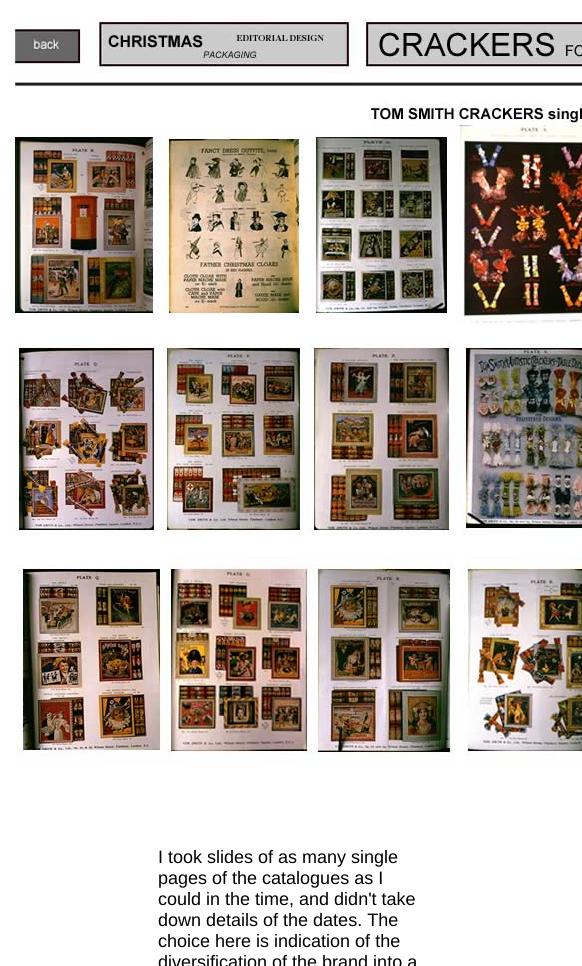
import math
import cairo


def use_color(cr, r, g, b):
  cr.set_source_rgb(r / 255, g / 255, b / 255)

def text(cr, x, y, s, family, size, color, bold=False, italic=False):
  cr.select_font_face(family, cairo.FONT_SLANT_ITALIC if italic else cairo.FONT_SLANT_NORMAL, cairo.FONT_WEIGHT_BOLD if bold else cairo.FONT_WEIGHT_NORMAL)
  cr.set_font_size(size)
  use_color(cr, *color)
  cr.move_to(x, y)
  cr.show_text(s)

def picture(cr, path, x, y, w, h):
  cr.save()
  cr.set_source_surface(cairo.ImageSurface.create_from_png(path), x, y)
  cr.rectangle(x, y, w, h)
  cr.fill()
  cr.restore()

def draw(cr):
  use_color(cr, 255, 255, 255)
  cr.paint()
  picture(cr, "img_01.png", 8, 25, 79, 64)
  picture(cr, "img_02.png", 87, 18, 268, 68)
  picture(cr, "img_03.png", 355, 17, 227, 69)
  picture(cr, "img_04.png", 371, 103, 211, 34)
  picture(cr, "img_05.png", 8, 137, 151, 177)
  picture(cr, "img_06.png", 159, 137, 144, 177)
  picture(cr, "img_07.png", 311, 137, 136, 177)
  picture(cr, "img_08.png", 457, 137, 125, 188)
  picture(cr, "img_09.png", 8, 343, 151, 192)
  picture(cr, "img_10.png", 159, 343, 141, 192)
  picture(cr, "img_11.png", 300, 343, 152, 192)
  picture(cr, "img_12.png", 455, 343, 127, 192)
  picture(cr, "img_13.png", 16, 564, 151, 200)
  picture(cr, "img_14.png", 167, 556, 144, 208)
  picture(cr, "img_15.png", 311, 556, 144, 208)
  picture(cr, "img_16.png", 462, 556, 120, 208)
  text(cr, 158, 863, "I took slides of as many single", "Liberation Sans", 18, (0, 0, 0))
  text(cr, 158, 884, "pages of the catalogues as I", "Liberation Sans", 18, (0, 0, 0))
  text(cr, 158, 905, "could in the time, and didn't take", "Liberation Sans", 18, (0, 0, 0))
  text(cr, 158, 926, "down details of the dates. The", "Liberation Sans", 18, (0, 0, 0))
  text(cr, 158, 947, "choice here is indication of the", "Liberation Sans", 18, (0, 0, 0))
  text(cr, 158, 968, "diversification of the brand into a", "Liberation Sans", 18, (0, 0, 0))


surface = cairo.ImageSurface(cairo.FORMAT_RGB24, 582, 966)
cr = cairo.Context(surface)
options = cairo.FontOptions()
options.set_hint_metrics(cairo.HINT_METRICS_OFF)
options.set_hint_style(cairo.HINT_STYLE_NONE)
cr.set_font_options(options)
cr.set_miter_limit(4)
draw(cr)
surface.write_to_png("out.png")
